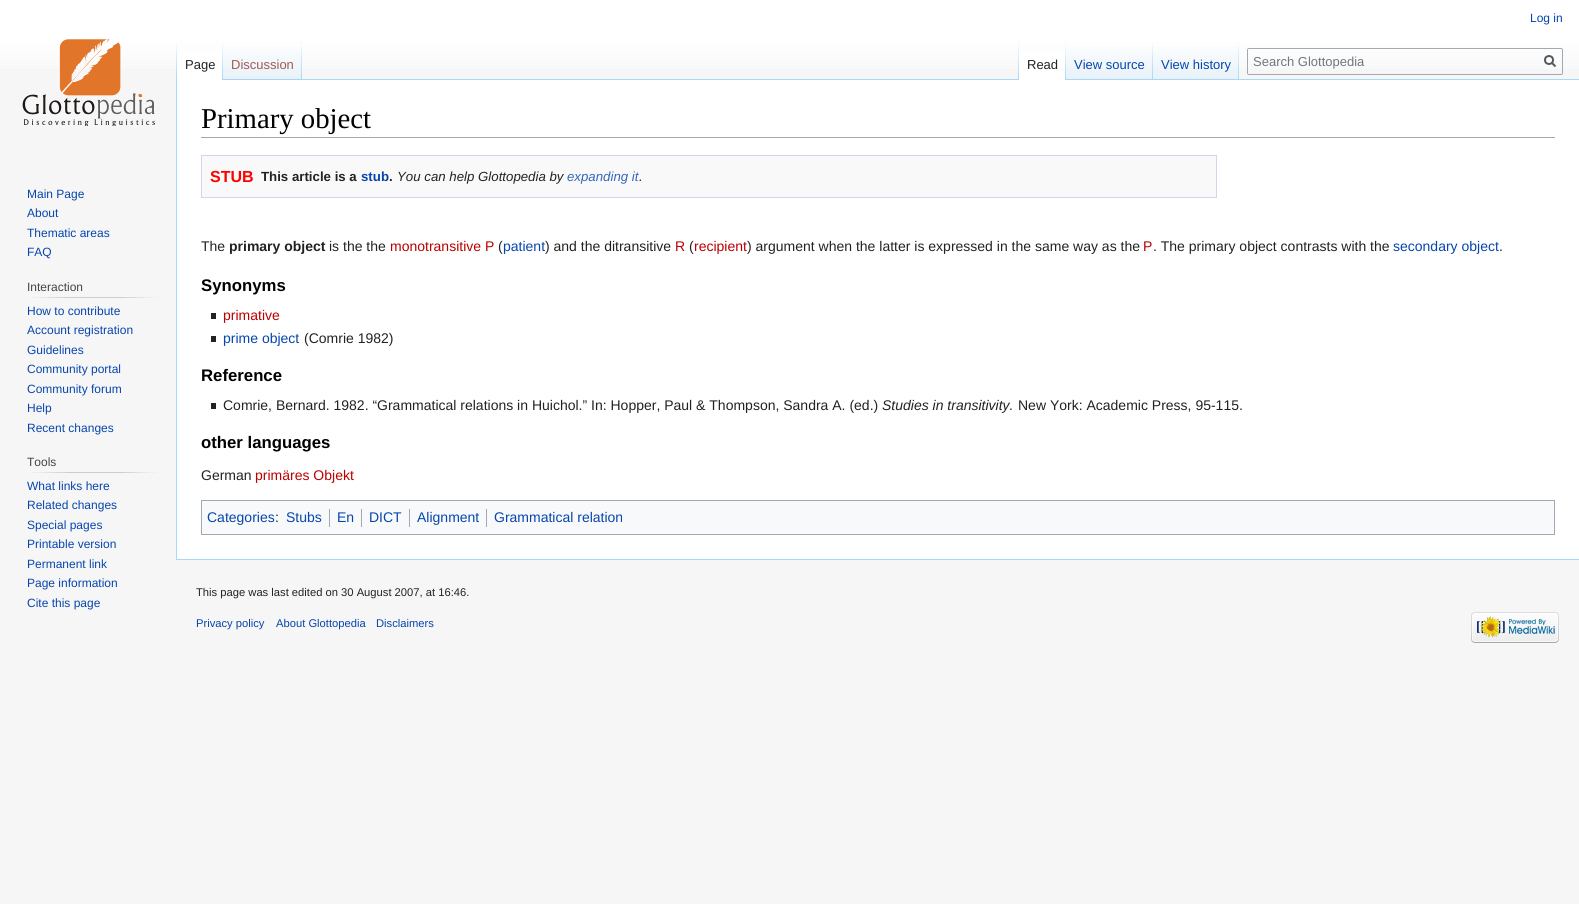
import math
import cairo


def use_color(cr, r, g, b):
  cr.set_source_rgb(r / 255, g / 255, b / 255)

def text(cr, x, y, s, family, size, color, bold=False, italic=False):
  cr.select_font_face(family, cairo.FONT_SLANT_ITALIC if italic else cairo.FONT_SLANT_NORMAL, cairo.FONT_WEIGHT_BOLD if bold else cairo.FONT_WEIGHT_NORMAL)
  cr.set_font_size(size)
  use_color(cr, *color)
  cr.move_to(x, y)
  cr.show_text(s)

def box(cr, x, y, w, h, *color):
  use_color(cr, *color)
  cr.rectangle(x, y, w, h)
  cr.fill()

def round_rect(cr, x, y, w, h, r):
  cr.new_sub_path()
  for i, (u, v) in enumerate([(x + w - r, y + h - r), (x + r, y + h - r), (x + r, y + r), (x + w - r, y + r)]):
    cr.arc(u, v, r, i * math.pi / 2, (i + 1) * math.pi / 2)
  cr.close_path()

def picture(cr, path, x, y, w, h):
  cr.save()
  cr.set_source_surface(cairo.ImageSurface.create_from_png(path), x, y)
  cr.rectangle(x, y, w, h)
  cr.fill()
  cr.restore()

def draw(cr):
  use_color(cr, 246, 246, 246)
  cr.paint()
  gradient = cairo.LinearGradient(790, 0, 790, 80)
  gradient.add_color_stop_rgba(0.5, 1, 1, 1, 1)
  gradient.add_color_stop_rgba(1, 0.965, 0.965, 0.965, 1)
  cr.set_source(gradient)
  cr.rectangle(0, 0, 1579, 69)
  cr.fill()
  box(cr, 176, 559, 1403, 1, 167, 215, 249)
  box(cr, 176, 79, 1, 481, 167, 215, 249)
  gradient = cairo.LinearGradient(177, 40, 177, 80)
  gradient.add_color_stop_rgba(0, 0.655, 0.843, 0.976, 0)
  gradient.add_color_stop_rgba(1, 0.655, 0.843, 0.976, 1)
  cr.set_source(gradient)
  cr.rectangle(176, 40, 1, 40)
  cr.fill()
  box(cr, 177, 51, 45, 29, 255, 255, 255)
  gradient = cairo.LinearGradient(223, 40, 223, 80)
  gradient.add_color_stop_rgba(0, 1, 1, 1, 1)
  gradient.add_color_stop_rgba(1, 0.655, 0.843, 0.976, 1)
  cr.set_source(gradient)
  cr.rectangle(222, 40, 1, 40)
  cr.fill()
  gradient = cairo.LinearGradient(263, 80, 263, 40)
  gradient.add_color_stop_rgba(0, 0.467, 0.757, 0.965, 1)
  gradient.add_color_stop_rgba(0.03, 0.91, 0.949, 0.973, 1)
  gradient.add_color_stop_rgba(1, 1, 1, 1, 1)
  cr.set_source(gradient)
  cr.rectangle(223, 46, 79, 34)
  cr.fill()
  gradient = cairo.LinearGradient(302, 40, 302, 80)
  gradient.add_color_stop_rgba(0, 0.655, 0.843, 0.976, 0)
  gradient.add_color_stop_rgba(1, 0.655, 0.843, 0.976, 1)
  cr.set_source(gradient)
  cr.rectangle(301, 40, 1, 40)
  cr.fill()
  box(cr, 302, 79, 1277, 1, 167, 215, 249)
  gradient = cairo.LinearGradient(1019, 40, 1019, 80)
  gradient.add_color_stop_rgba(0, 0.655, 0.843, 0.976, 0)
  gradient.add_color_stop_rgba(1, 0.655, 0.843, 0.976, 1)
  cr.set_source(gradient)
  cr.rectangle(1018, 40, 1, 40)
  cr.fill()
  box(cr, 1019, 51, 46, 29, 255, 255, 255)
  gradient = cairo.LinearGradient(1066, 40, 1066, 80)
  gradient.add_color_stop_rgba(0, 1, 1, 1, 1)
  gradient.add_color_stop_rgba(1, 0.655, 0.843, 0.976, 1)
  cr.set_source(gradient)
  cr.rectangle(1065, 40, 1, 40)
  cr.fill()
  gradient = cairo.LinearGradient(1110, 80, 1110, 40)
  gradient.add_color_stop_rgba(0, 0.467, 0.757, 0.965, 1)
  gradient.add_color_stop_rgba(0.03, 0.91, 0.949, 0.973, 1)
  gradient.add_color_stop_rgba(1, 1, 1, 1, 1)
  cr.set_source(gradient)
  cr.rectangle(1066, 46, 87, 33)
  cr.fill()
  gradient = cairo.LinearGradient(1153, 40, 1153, 80)
  gradient.add_color_stop_rgba(0, 0.655, 0.843, 0.976, 0)
  gradient.add_color_stop_rgba(1, 0.655, 0.843, 0.976, 1)
  cr.set_source(gradient)
  cr.rectangle(1152, 40, 1, 40)
  cr.fill()
  gradient = cairo.LinearGradient(1196, 80, 1196, 40)
  gradient.add_color_stop_rgba(0, 0.467, 0.757, 0.965, 1)
  gradient.add_color_stop_rgba(0.03, 0.91, 0.949, 0.973, 1)
  gradient.add_color_stop_rgba(1, 1, 1, 1, 1)
  cr.set_source(gradient)
  cr.rectangle(1153, 46, 86, 33)
  cr.fill()
  gradient = cairo.LinearGradient(1239, 40, 1239, 80)
  gradient.add_color_stop_rgba(0, 0.655, 0.843, 0.976, 0)
  gradient.add_color_stop_rgba(1, 0.655, 0.843, 0.976, 1)
  cr.set_source(gradient)
  cr.rectangle(1238, 40, 1, 40)
  cr.fill()
  round_rect(cr, 1247.5, 48.5, 315, 26, 1.5)
  use_color(cr, 162, 169, 177)
  cr.set_line_width(1)
  cr.stroke()
  cr.new_path()
  cr.move_to(1555.5, 66.5)
  cr.line_to(1551.5, 62.5)
  use_color(cr, 84, 89, 93)
  cr.set_line_width(2)
  cr.stroke()
  cr.arc(1549, 60, 4, 0, 2 * math.pi)
  cr.stroke()
  picture(cr, "img_01.png", 22, 39, 133, 87)
  gradient = cairo.LinearGradient(27, 298, 158, 298)
  gradient.add_color_stop_rgba(0, 0.965, 0.965, 0.965, 1)
  gradient.add_color_stop_rgba(0.35, 0.784, 0.8, 0.82, 1)
  gradient.add_color_stop_rgba(0.7, 0.784, 0.8, 0.82, 1)
  gradient.add_color_stop_rgba(1, 0.965, 0.965, 0.965, 1)
  cr.set_source(gradient)
  cr.rectangle(27, 297, 131, 1)
  cr.fill()
  gradient = cairo.LinearGradient(27, 473, 158, 473)
  gradient.add_color_stop_rgba(0, 0.965, 0.965, 0.965, 1)
  gradient.add_color_stop_rgba(0.35, 0.784, 0.8, 0.82, 1)
  gradient.add_color_stop_rgba(0.7, 0.784, 0.8, 0.82, 1)
  gradient.add_color_stop_rgba(1, 0.965, 0.965, 0.965, 1)
  cr.set_source(gradient)
  cr.rectangle(27, 472, 131, 1)
  cr.fill()
  box(cr, 177, 80, 1402, 479, 255, 255, 255)
  box(cr, 201, 137, 1354, 1, 162, 169, 177)
  use_color(cr, 249, 249, 249)
  cr.rectangle(201.5, 155.5, 1015, 42)
  cr.fill_preserve()
  use_color(cr, 221, 206, 242)
  cr.set_line_width(1)
  cr.stroke()
  box(cr, 211, 313, 5, 6, 34, 34, 34)
  box(cr, 211, 336, 5, 6, 34, 34, 34)
  box(cr, 211, 403, 5, 6, 34, 34, 34)
  use_color(cr, 248, 249, 250)
  cr.rectangle(201.5, 500.5, 1353, 34)
  cr.fill_preserve()
  use_color(cr, 162, 169, 177)
  cr.stroke()
  box(cr, 329, 509, 1, 18, 162, 169, 177)
  box(cr, 361, 509, 1, 18, 162, 169, 177)
  box(cr, 409, 509, 1, 18, 162, 169, 177)
  box(cr, 486, 509, 1, 18, 162, 169, 177)
  picture(cr, "img_02.png", 1471, 612, 88, 31)
  text(cr, 1530, 22, "Log in", "Liberation Sans", 12, (6, 69, 173))
  text(cr, 185, 69, "Page", "Liberation Sans", 13, (34, 34, 34))
  text(cr, 231, 69, "Discussion", "Liberation Sans", 13, (165, 88, 88))
  text(cr, 1027, 69, "Read", "Liberation Sans", 13, (34, 34, 34))
  text(cr, 1074, 69, "View source", "Liberation Sans", 13, (6, 69, 173))
  text(cr, 1161, 69, "View history", "Liberation Sans", 13, (6, 69, 173))
  text(cr, 1253, 66, "Search Glottopedia", "Liberation Sans", 13, (114, 119, 125))
  text(cr, 27, 198, "Main Page", "Liberation Sans", 12, (6, 69, 173))
  text(cr, 27, 217, "About", "Liberation Sans", 12, (6, 69, 173))
  text(cr, 27, 237, "Thematic areas", "Liberation Sans", 12, (6, 69, 173))
  text(cr, 27, 256, "FAQ", "Liberation Sans", 12, (6, 69, 173))
  text(cr, 27, 291, "Interaction", "Liberation Sans", 12, (68, 68, 68))
  text(cr, 27, 315, "How to contribute", "Liberation Sans", 12, (6, 69, 173))
  text(cr, 27, 334, "Account registration", "Liberation Sans", 12, (6, 69, 173))
  text(cr, 27, 354, "Guidelines", "Liberation Sans", 12, (6, 69, 173))
  text(cr, 27, 373, "Community portal", "Liberation Sans", 12, (6, 69, 173))
  text(cr, 27, 393, "Community forum", "Liberation Sans", 12, (6, 69, 173))
  text(cr, 27, 412, "Help", "Liberation Sans", 12, (6, 69, 173))
  text(cr, 27, 432, "Recent changes", "Liberation Sans", 12, (6, 69, 173))
  text(cr, 27, 466, "Tools", "Liberation Sans", 12, (68, 68, 68))
  text(cr, 27, 490, "What links here", "Liberation Sans", 12, (6, 69, 173))
  text(cr, 27, 509, "Related changes", "Liberation Sans", 12, (6, 69, 173))
  text(cr, 27, 529, "Special pages", "Liberation Sans", 12, (6, 69, 173))
  text(cr, 27, 548, "Printable version", "Liberation Sans", 12, (6, 69, 173))
  text(cr, 27, 568, "Permanent link", "Liberation Sans", 12, (6, 69, 173))
  text(cr, 27, 587, "Page information", "Liberation Sans", 12, (6, 69, 173))
  text(cr, 27, 607, "Cite this page", "Liberation Sans", 12, (6, 69, 173))
  text(cr, 201, 128, "Primary object", "Liberation Serif", 28.75, (0, 0, 0))
  text(cr, 210, 182, "STUB", "Liberation Sans", 16, (255, 0, 0), bold=True)
  text(cr, 261, 181, "This article is a", "Liberation Sans", 13.25, (34, 34, 34), bold=True)
  text(cr, 361, 181, "stub", "Liberation Sans", 13.25, (6, 69, 173), bold=True)
  text(cr, 389, 181, ".", "Liberation Sans", 13.25, (34, 34, 34), bold=True)
  text(cr, 397, 181, "You can help Glottopedia by", "Liberation Sans", 13.25, (34, 34, 34), italic=True)
  text(cr, 567, 181, "expanding it", "Liberation Sans", 13.25, (51, 102, 187), italic=True)
  text(cr, 639, 181, ".", "Liberation Sans", 13.25, (34, 34, 34), italic=True)
  text(cr, 201, 251, "The", "Liberation Sans", 14, (34, 34, 34))
  text(cr, 229, 251, "primary object", "Liberation Sans", 14, (34, 34, 34), bold=True)
  text(cr, 329, 251, "is the the", "Liberation Sans", 14, (34, 34, 34))
  text(cr, 390, 251, "monotransitive P", "Liberation Sans", 14, (186, 0, 0))
  text(cr, 498, 251, "(", "Liberation Sans", 14, (34, 34, 34))
  text(cr, 503, 251, "patient", "Liberation Sans", 14, (6, 69, 173))
  text(cr, 545, 251, ") and the ditransitive", "Liberation Sans", 14, (34, 34, 34))
  text(cr, 675, 251, "R", "Liberation Sans", 14, (186, 0, 0))
  text(cr, 689, 251, "(", "Liberation Sans", 14, (34, 34, 34))
  text(cr, 694, 251, "recipient", "Liberation Sans", 14, (186, 0, 0))
  text(cr, 747, 251, ") argument when the latter is expressed in the same way as the", "Liberation Sans", 14, (34, 34, 34))
  text(cr, 1143, 251, "P", "Liberation Sans", 14, (186, 0, 0))
  text(cr, 1153, 251, ". The primary object contrasts with the", "Liberation Sans", 14, (34, 34, 34))
  text(cr, 1393, 251, "secondary object", "Liberation Sans", 14, (6, 69, 173))
  text(cr, 1499, 251, ".", "Liberation Sans", 14, (34, 34, 34))
  text(cr, 201, 291, "Synonyms", "Liberation Sans", 16.75, (0, 0, 0), bold=True)
  text(cr, 223, 320, "primative", "Liberation Sans", 14, (186, 0, 0))
  text(cr, 223, 343, "prime object", "Liberation Sans", 14, (6, 69, 173))
  text(cr, 304, 343, "(Comrie 1982)", "Liberation Sans", 14, (34, 34, 34))
  text(cr, 201, 381, "Reference", "Liberation Sans", 16.75, (0, 0, 0), bold=True)
  text(cr, 223, 410, "Comrie, Bernard. 1982. “Grammatical relations in Huichol.” In: Hopper, Paul & Thompson, Sandra A. (ed.)", "Liberation Sans", 14, (34, 34, 34))
  text(cr, 882, 410, "Studies in transitivity.", "Liberation Sans", 14, (34, 34, 34), italic=True)
  text(cr, 1018, 410, "New York: Academic Press, 95-115.", "Liberation Sans", 14, (34, 34, 34))
  text(cr, 201, 448, "other languages", "Liberation Sans", 16.75, (0, 0, 0), bold=True)
  text(cr, 201, 480, "German", "Liberation Sans", 14, (34, 34, 34))
  text(cr, 255, 480, "primäres Objekt", "Liberation Sans", 14, (186, 0, 0))
  text(cr, 207, 522, "Categories", "Liberation Sans", 14, (6, 69, 173))
  text(cr, 275, 522, ":", "Liberation Sans", 14, (34, 34, 34))
  text(cr, 286, 522, "Stubs", "Liberation Sans", 14, (6, 69, 173))
  text(cr, 337, 522, "En", "Liberation Sans", 14, (6, 69, 173))
  text(cr, 369, 522, "DICT", "Liberation Sans", 14, (6, 69, 173))
  text(cr, 417, 522, "Alignment", "Liberation Sans", 14, (6, 69, 173))
  text(cr, 494, 522, "Grammatical relation", "Liberation Sans", 14, (6, 69, 173))
  text(cr, 196, 596, "This page was last edited on 30 August 2007, at 16:46.", "Liberation Sans", 11.2, (34, 34, 34))
  text(cr, 196, 627, "Privacy policy", "Liberation Sans", 11.2, (6, 69, 173))
  text(cr, 276, 627, "About Glottopedia", "Liberation Sans", 11.2, (6, 69, 173))
  text(cr, 376, 627, "Disclaimers", "Liberation Sans", 11.2, (6, 69, 173))


surface = cairo.ImageSurface(cairo.FORMAT_RGB24, 1579, 904)
cr = cairo.Context(surface)
options = cairo.FontOptions()
options.set_hint_metrics(cairo.HINT_METRICS_OFF)
options.set_hint_style(cairo.HINT_STYLE_NONE)
cr.set_font_options(options)
cr.set_miter_limit(4)
draw(cr)
surface.write_to_png("out.png")
